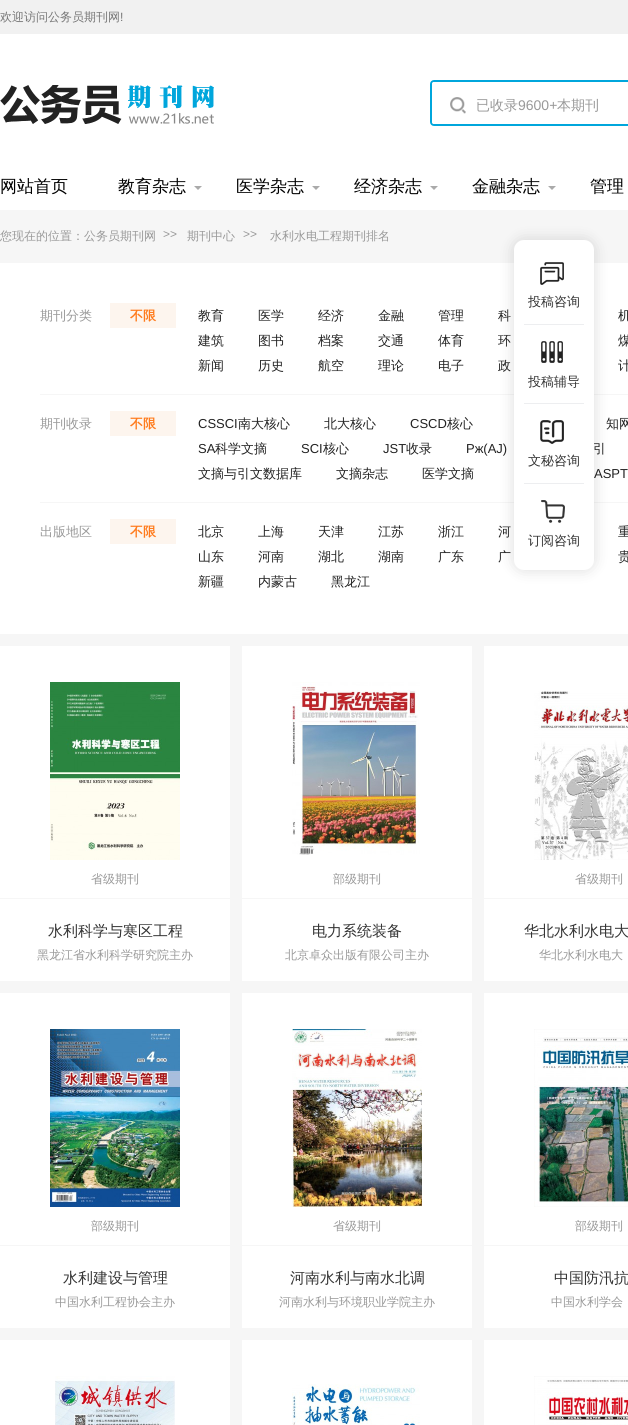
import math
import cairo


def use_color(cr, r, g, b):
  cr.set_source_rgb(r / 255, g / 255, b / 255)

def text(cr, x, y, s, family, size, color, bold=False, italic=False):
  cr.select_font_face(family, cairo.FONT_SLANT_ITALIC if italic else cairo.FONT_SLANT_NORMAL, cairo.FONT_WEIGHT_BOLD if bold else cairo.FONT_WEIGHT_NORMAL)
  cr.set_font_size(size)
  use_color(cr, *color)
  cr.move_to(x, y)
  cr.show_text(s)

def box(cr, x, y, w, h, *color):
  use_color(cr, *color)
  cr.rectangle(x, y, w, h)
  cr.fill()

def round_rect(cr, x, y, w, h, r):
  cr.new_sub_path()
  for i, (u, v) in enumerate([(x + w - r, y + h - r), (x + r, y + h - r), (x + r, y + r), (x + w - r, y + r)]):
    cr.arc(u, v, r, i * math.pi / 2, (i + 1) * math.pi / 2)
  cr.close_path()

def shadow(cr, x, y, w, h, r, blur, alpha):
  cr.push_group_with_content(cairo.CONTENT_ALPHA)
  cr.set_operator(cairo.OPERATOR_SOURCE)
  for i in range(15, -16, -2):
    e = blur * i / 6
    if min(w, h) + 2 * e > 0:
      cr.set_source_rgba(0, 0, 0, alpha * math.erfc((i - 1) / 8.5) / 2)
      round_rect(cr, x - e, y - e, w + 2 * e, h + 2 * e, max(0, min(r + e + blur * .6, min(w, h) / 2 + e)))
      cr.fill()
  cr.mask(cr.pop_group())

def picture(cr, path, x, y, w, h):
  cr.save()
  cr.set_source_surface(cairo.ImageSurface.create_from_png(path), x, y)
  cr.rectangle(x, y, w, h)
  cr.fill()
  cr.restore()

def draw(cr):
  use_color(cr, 246, 246, 246)
  cr.paint()
  box(cr, 0, 34, 628, 176, 255, 255, 255)
  box(cr, 0, 0, 628, 34, 241, 241, 241)
  picture(cr, "img_01.png", 0, 85, 214, 39)
  round_rect(cr, 431, 81, 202, 44, 3)
  use_color(cr, 0, 166, 220)
  cr.stroke()
  use_color(cr, 255, 255, 255)
  cr.new_path()
  cr.move_to(434, 82)
  cr.line_to(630, 82)
  cr.line_to(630, 124)
  cr.line_to(434, 124)
  cr.curve_to(433, 124, 432, 123, 432, 122)
  cr.line_to(432, 84)
  cr.curve_to(432, 83, 433, 82, 434, 82)
  cr.close_path()
  cr.fill()
  picture(cr, "img_02.png", 450, 97, 16, 17)
  use_color(cr, 170, 170, 170)
  cr.new_path()
  cr.move_to(194, 186)
  cr.line_to(202, 186)
  cr.line_to(198, 190)
  cr.close_path()
  cr.fill()
  cr.new_path()
  cr.move_to(312, 186)
  cr.line_to(320, 186)
  cr.line_to(316, 190)
  cr.close_path()
  cr.fill()
  cr.new_path()
  cr.move_to(430, 186)
  cr.line_to(438, 186)
  cr.line_to(434, 190)
  cr.close_path()
  cr.fill()
  cr.new_path()
  cr.move_to(548, 186)
  cr.line_to(556, 186)
  cr.line_to(552, 190)
  cr.close_path()
  cr.fill()
  box(cr, 0, 263, 628, 371, 255, 255, 255)
  box(cr, 40, 394, 588, 1, 246, 246, 246)
  box(cr, 110, 303, 66, 25, 253, 245, 238)
  box(cr, 40, 502, 588, 1, 246, 246, 246)
  box(cr, 110, 411, 66, 25, 253, 245, 238)
  box(cr, 110, 519, 66, 25, 253, 245, 238)
  box(cr, 0, 646, 230, 335, 255, 255, 255)
  box(cr, 0, 898, 230, 1, 246, 246, 246)
  picture(cr, "img_03.png", 50, 682, 130, 178)
  box(cr, 242, 646, 230, 335, 255, 255, 255)
  box(cr, 242, 898, 230, 1, 246, 246, 246)
  picture(cr, "img_04.png", 292, 682, 128, 173)
  box(cr, 484, 646, 144, 335, 255, 255, 255)
  box(cr, 484, 898, 144, 1, 246, 246, 246)
  picture(cr, "img_05.png", 534, 691, 94, 169)
  box(cr, 0, 993, 230, 335, 255, 255, 255)
  box(cr, 0, 1245, 230, 1, 246, 246, 246)
  picture(cr, "img_06.png", 50, 1029, 130, 178)
  box(cr, 242, 993, 230, 335, 255, 255, 255)
  box(cr, 242, 1245, 230, 1, 246, 246, 246)
  picture(cr, "img_07.png", 292, 1029, 130, 178)
  box(cr, 484, 993, 144, 335, 255, 255, 255)
  box(cr, 484, 1245, 144, 1, 246, 246, 246)
  picture(cr, "img_08.png", 534, 1029, 94, 178)
  box(cr, 0, 1340, 230, 85, 255, 255, 255)
  picture(cr, "img_09.png", 55, 1376, 120, 49)
  box(cr, 242, 1340, 230, 85, 255, 255, 255)
  picture(cr, "img_10.png", 292, 1384, 128, 41)
  box(cr, 484, 1340, 144, 85, 255, 255, 255)
  picture(cr, "img_11.png", 534, 1376, 94, 49)
  use_color(cr, 0, 0, 0)
  shadow(cr, 514, 240, 80, 330, 10, 7.5, 0.14)
  use_color(cr, 255, 255, 255)
  round_rect(cr, 514, 240, 80, 330, 10)
  cr.fill()
  picture(cr, "img_12.png", 540, 262, 24, 23)
  box(cr, 524, 324, 60, 1, 237, 238, 240)
  picture(cr, "img_13.png", 541, 341, 22, 22)
  box(cr, 524, 403, 60, 1, 237, 238, 240)
  picture(cr, "img_14.png", 540, 420, 24, 24)
  box(cr, 524, 483, 60, 1, 237, 238, 240)
  picture(cr, "img_15.png", 541, 500, 24, 23)
  text(cr, 0, 21, "欢迎访问公务员期刊网", "WenQuanYi Zen Hei Medium", 12, (119, 119, 119))
  text(cr, 120, 21, "!", "Liberation Sans", 12, (119, 119, 119))
  text(cr, 476, 110, "已收录", "WenQuanYi Zen Hei Medium", 14, (153, 153, 153))
  text(cr, 518, 110, "9600+", "Liberation Sans", 14, (153, 153, 153))
  text(cr, 557, 110, "本期刊", "WenQuanYi Zen Hei Medium", 14, (153, 153, 153))
  text(cr, 0, 192, "网站首页", "WenQuanYi Zen Hei Medium", 17, (0, 0, 0))
  text(cr, 118, 192, "教育杂志", "WenQuanYi Zen Hei Medium", 17, (0, 0, 0))
  text(cr, 236, 192, "医学杂志", "WenQuanYi Zen Hei Medium", 17, (0, 0, 0))
  text(cr, 354, 192, "经济杂志", "WenQuanYi Zen Hei Medium", 17, (0, 0, 0))
  text(cr, 472, 192, "金融杂志", "WenQuanYi Zen Hei Medium", 17, (0, 0, 0))
  text(cr, 590, 192, "管理", "WenQuanYi Zen Hei Medium", 17, (0, 0, 0))
  text(cr, 0, 240, "您现在的位置：公务员期刊网", "WenQuanYi Zen Hei Medium", 12, (153, 153, 153))
  text(cr, 163, 238, ">>", "Liberation Sans", 12, (153, 153, 153))
  text(cr, 187, 240, "期刊中心", "WenQuanYi Zen Hei Medium", 12, (153, 153, 153))
  text(cr, 243, 238, ">>", "Liberation Sans", 12, (153, 153, 153))
  text(cr, 270, 240, "水利水电工程期刊排名", "WenQuanYi Zen Hei Medium", 12, (153, 153, 153))
  text(cr, 40, 320, "期刊分类", "WenQuanYi Zen Hei Medium", 13, (153, 153, 153))
  text(cr, 130, 320, "不限", "WenQuanYi Zen Hei", 13, (255, 122, 27), bold=True)
  text(cr, 198, 320, "教育", "WenQuanYi Zen Hei Medium", 13, (34, 34, 34))
  text(cr, 258, 320, "医学", "WenQuanYi Zen Hei Medium", 13, (34, 34, 34))
  text(cr, 318, 320, "经济", "WenQuanYi Zen Hei Medium", 13, (34, 34, 34))
  text(cr, 378, 320, "金融", "WenQuanYi Zen Hei Medium", 13, (34, 34, 34))
  text(cr, 438, 320, "管理", "WenQuanYi Zen Hei Medium", 13, (34, 34, 34))
  text(cr, 498, 320, "科", "WenQuanYi Zen Hei Medium", 13, (34, 34, 34))
  text(cr, 618, 320, "机", "WenQuanYi Zen Hei Medium", 13, (34, 34, 34))
  text(cr, 198, 345, "建筑", "WenQuanYi Zen Hei Medium", 13, (34, 34, 34))
  text(cr, 258, 345, "图书", "WenQuanYi Zen Hei Medium", 13, (34, 34, 34))
  text(cr, 318, 345, "档案", "WenQuanYi Zen Hei Medium", 13, (34, 34, 34))
  text(cr, 378, 345, "交通", "WenQuanYi Zen Hei Medium", 13, (34, 34, 34))
  text(cr, 438, 345, "体育", "WenQuanYi Zen Hei Medium", 13, (34, 34, 34))
  text(cr, 498, 345, "环", "WenQuanYi Zen Hei Medium", 13, (34, 34, 34))
  text(cr, 618, 345, "煤", "WenQuanYi Zen Hei Medium", 13, (34, 34, 34))
  text(cr, 198, 370, "新闻", "WenQuanYi Zen Hei Medium", 13, (34, 34, 34))
  text(cr, 258, 370, "历史", "WenQuanYi Zen Hei Medium", 13, (34, 34, 34))
  text(cr, 318, 370, "航空", "WenQuanYi Zen Hei Medium", 13, (34, 34, 34))
  text(cr, 378, 370, "理论", "WenQuanYi Zen Hei Medium", 13, (34, 34, 34))
  text(cr, 438, 370, "电子", "WenQuanYi Zen Hei Medium", 13, (34, 34, 34))
  text(cr, 498, 370, "政", "WenQuanYi Zen Hei Medium", 13, (34, 34, 34))
  text(cr, 618, 370, "计", "WenQuanYi Zen Hei Medium", 13, (34, 34, 34))
  text(cr, 40, 428, "期刊收录", "WenQuanYi Zen Hei Medium", 13, (153, 153, 153))
  text(cr, 130, 428, "不限", "WenQuanYi Zen Hei", 13, (255, 122, 27), bold=True)
  text(cr, 198, 428, "CSSCI", "Liberation Sans", 13, (34, 34, 34))
  text(cr, 238, 428, "南大核心", "WenQuanYi Zen Hei Medium", 13, (34, 34, 34))
  text(cr, 324, 428, "北大核心", "WenQuanYi Zen Hei Medium", 13, (34, 34, 34))
  text(cr, 410, 428, "CSCD", "Liberation Sans", 13, (34, 34, 34))
  text(cr, 447, 428, "核心", "WenQuanYi Zen Hei Medium", 13, (34, 34, 34))
  text(cr, 606, 428, "知网", "WenQuanYi Zen Hei Medium", 13, (34, 34, 34))
  text(cr, 198, 453, "SA", "Liberation Sans", 13, (34, 34, 34))
  text(cr, 215, 453, "科学文摘", "WenQuanYi Zen Hei Medium", 13, (34, 34, 34))
  text(cr, 301, 453, "SCI", "Liberation Sans", 13, (34, 34, 34))
  text(cr, 323, 453, "核心", "WenQuanYi Zen Hei Medium", 13, (34, 34, 34))
  text(cr, 383, 453, "JST", "Liberation Sans", 13, (34, 34, 34))
  text(cr, 406, 453, "收录", "WenQuanYi Zen Hei Medium", 13, (34, 34, 34))
  text(cr, 466, 453, "Pж(AJ)", "Liberation Sans", 13, (34, 34, 34))
  text(cr, 593, 453, "引", "WenQuanYi Zen Hei Medium", 13, (34, 34, 34))
  text(cr, 198, 478, "文摘与引文数据库", "WenQuanYi Zen Hei Medium", 13, (34, 34, 34))
  text(cr, 336, 478, "文摘杂志", "WenQuanYi Zen Hei Medium", 13, (34, 34, 34))
  text(cr, 422, 478, "医学文摘", "WenQuanYi Zen Hei Medium", 13, (34, 34, 34))
  text(cr, 594, 478, "ASPT", "Liberation Sans", 13, (34, 34, 34))
  text(cr, 40, 536, "出版地区", "WenQuanYi Zen Hei Medium", 13, (153, 153, 153))
  text(cr, 130, 536, "不限", "WenQuanYi Zen Hei", 13, (255, 122, 27), bold=True)
  text(cr, 198, 536, "北京", "WenQuanYi Zen Hei Medium", 13, (34, 34, 34))
  text(cr, 258, 536, "上海", "WenQuanYi Zen Hei Medium", 13, (34, 34, 34))
  text(cr, 318, 536, "天津", "WenQuanYi Zen Hei Medium", 13, (34, 34, 34))
  text(cr, 378, 536, "江苏", "WenQuanYi Zen Hei Medium", 13, (34, 34, 34))
  text(cr, 438, 536, "浙江", "WenQuanYi Zen Hei Medium", 13, (34, 34, 34))
  text(cr, 498, 536, "河", "WenQuanYi Zen Hei Medium", 13, (34, 34, 34))
  text(cr, 618, 536, "重", "WenQuanYi Zen Hei Medium", 13, (34, 34, 34))
  text(cr, 198, 561, "山东", "WenQuanYi Zen Hei Medium", 13, (34, 34, 34))
  text(cr, 258, 561, "河南", "WenQuanYi Zen Hei Medium", 13, (34, 34, 34))
  text(cr, 318, 561, "湖北", "WenQuanYi Zen Hei Medium", 13, (34, 34, 34))
  text(cr, 378, 561, "湖南", "WenQuanYi Zen Hei Medium", 13, (34, 34, 34))
  text(cr, 438, 561, "广东", "WenQuanYi Zen Hei Medium", 13, (34, 34, 34))
  text(cr, 498, 561, "广", "WenQuanYi Zen Hei Medium", 13, (34, 34, 34))
  text(cr, 618, 561, "贵", "WenQuanYi Zen Hei Medium", 13, (34, 34, 34))
  text(cr, 198, 586, "新疆", "WenQuanYi Zen Hei Medium", 13, (34, 34, 34))
  text(cr, 258, 586, "内蒙古", "WenQuanYi Zen Hei Medium", 13, (34, 34, 34))
  text(cr, 331, 586, "黑龙江", "WenQuanYi Zen Hei Medium", 13, (34, 34, 34))
  text(cr, 91, 883, "省级期刊", "WenQuanYi Zen Hei Medium", 12, (153, 153, 153))
  text(cr, 48, 936, "水利科学与寒区工程", "WenQuanYi Zen Hei Medium", 15, (51, 51, 51))
  text(cr, 37, 959, "黑龙江省水利科学研究院主办", "WenQuanYi Zen Hei Medium", 12, (153, 153, 153))
  text(cr, 333, 883, "部级期刊", "WenQuanYi Zen Hei Medium", 12, (153, 153, 153))
  text(cr, 312, 936, "电力系统装备", "WenQuanYi Zen Hei Medium", 15, (51, 51, 51))
  text(cr, 285, 959, "北京卓众出版有限公司主办", "WenQuanYi Zen Hei Medium", 12, (153, 153, 153))
  text(cr, 575, 883, "省级期刊", "WenQuanYi Zen Hei Medium", 12, (153, 153, 153))
  text(cr, 524, 936, "华北水利水电大", "WenQuanYi Zen Hei Medium", 15, (51, 51, 51))
  text(cr, 539, 959, "华北水利水电大", "WenQuanYi Zen Hei Medium", 12, (153, 153, 153))
  text(cr, 91, 1230, "部级期刊", "WenQuanYi Zen Hei Medium", 12, (153, 153, 153))
  text(cr, 63, 1283, "水利建设与管理", "WenQuanYi Zen Hei Medium", 15, (51, 51, 51))
  text(cr, 55, 1306, "中国水利工程协会主办", "WenQuanYi Zen Hei Medium", 12, (153, 153, 153))
  text(cr, 333, 1230, "省级期刊", "WenQuanYi Zen Hei Medium", 12, (153, 153, 153))
  text(cr, 290, 1283, "河南水利与南水北调", "WenQuanYi Zen Hei Medium", 15, (51, 51, 51))
  text(cr, 279, 1306, "河南水利与环境职业学院主办", "WenQuanYi Zen Hei Medium", 12, (153, 153, 153))
  text(cr, 575, 1230, "部级期刊", "WenQuanYi Zen Hei Medium", 12, (153, 153, 153))
  text(cr, 554, 1283, "中国防汛抗", "WenQuanYi Zen Hei Medium", 15, (51, 51, 51))
  text(cr, 551, 1306, "中国水利学会", "WenQuanYi Zen Hei Medium", 12, (153, 153, 153))
  text(cr, 528, 306, "投稿咨询", "WenQuanYi Zen Hei Medium", 13, (51, 51, 51))
  text(cr, 528, 386, "投稿辅导", "WenQuanYi Zen Hei Medium", 13, (51, 51, 51))
  text(cr, 528, 465, "文秘咨询", "WenQuanYi Zen Hei Medium", 13, (51, 51, 51))
  text(cr, 528, 545, "订阅咨询", "WenQuanYi Zen Hei Medium", 13, (51, 51, 51))


surface = cairo.ImageSurface(cairo.FORMAT_RGB24, 628, 1425)
cr = cairo.Context(surface)
options = cairo.FontOptions()
options.set_hint_metrics(cairo.HINT_METRICS_OFF)
options.set_hint_style(cairo.HINT_STYLE_NONE)
cr.set_font_options(options)
cr.set_miter_limit(4)
draw(cr)
surface.write_to_png("out.png")
